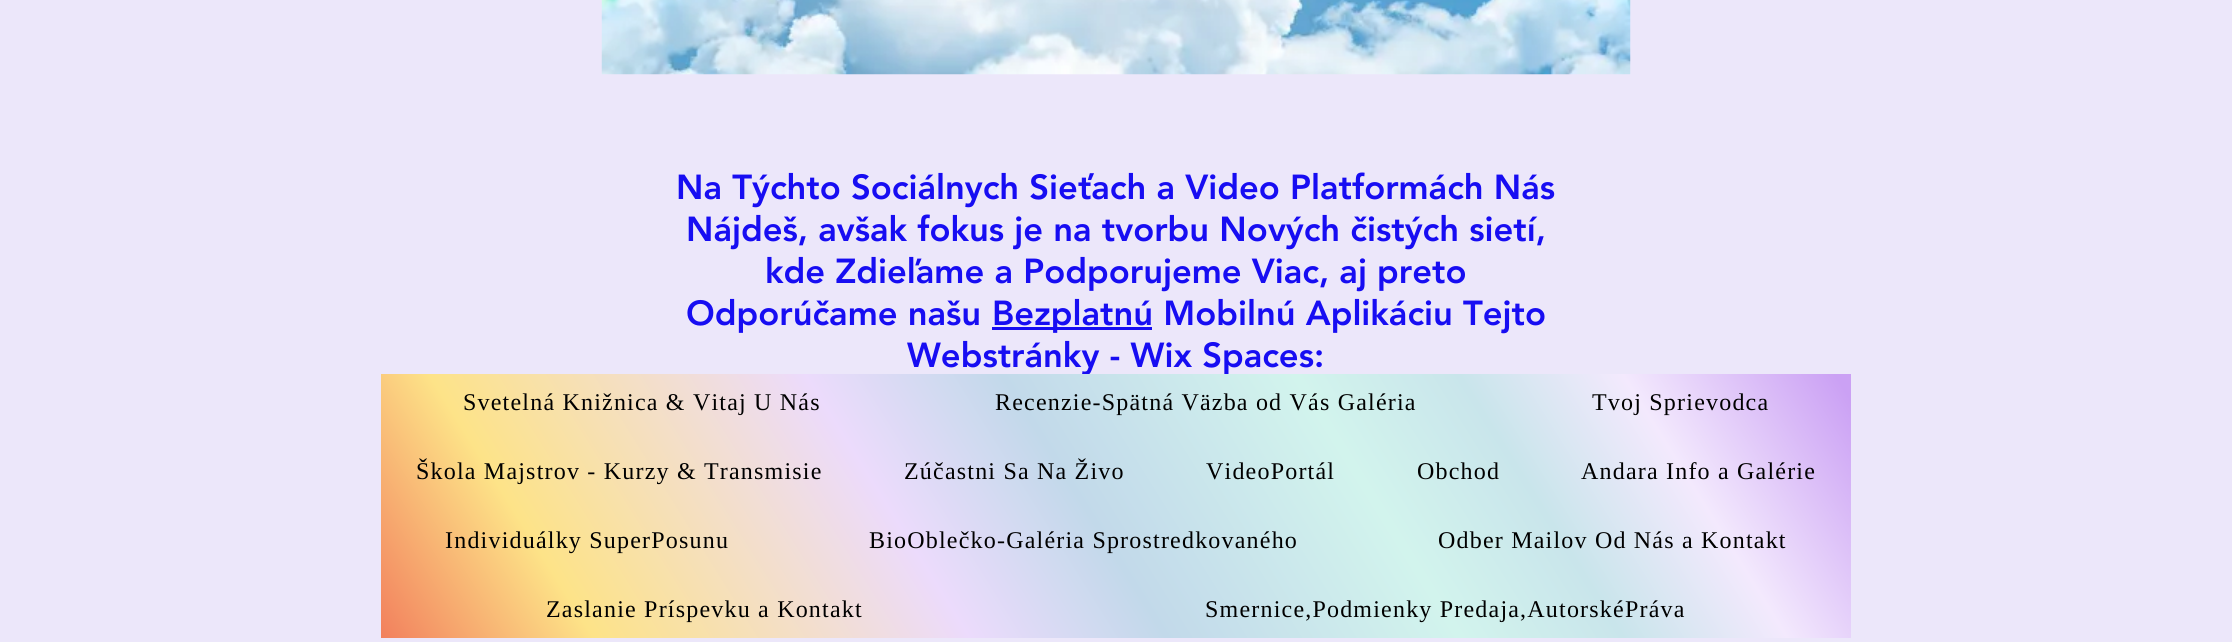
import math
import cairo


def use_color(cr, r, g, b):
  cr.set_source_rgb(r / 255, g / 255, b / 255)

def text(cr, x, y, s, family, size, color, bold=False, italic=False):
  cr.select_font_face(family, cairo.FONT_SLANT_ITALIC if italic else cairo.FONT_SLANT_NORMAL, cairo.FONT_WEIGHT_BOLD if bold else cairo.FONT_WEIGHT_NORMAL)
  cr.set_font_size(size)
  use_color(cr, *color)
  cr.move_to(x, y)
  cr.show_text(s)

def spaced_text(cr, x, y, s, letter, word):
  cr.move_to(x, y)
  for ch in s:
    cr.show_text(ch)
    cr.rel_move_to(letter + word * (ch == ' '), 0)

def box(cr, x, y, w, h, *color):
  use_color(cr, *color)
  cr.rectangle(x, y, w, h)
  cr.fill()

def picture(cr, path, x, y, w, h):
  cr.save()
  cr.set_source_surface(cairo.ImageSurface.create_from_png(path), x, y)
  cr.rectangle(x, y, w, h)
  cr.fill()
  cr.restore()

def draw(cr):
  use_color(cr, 236, 231, 250)
  cr.paint()
  picture(cr, "img_01.png", 601, 0, 1030, 75)
  box(cr, 992, 327, 160, 3, 23, 13, 242)
  text(cr, 676, 199, "Na Týchto Sociálnych Sieťach a Video Platformách Nás", "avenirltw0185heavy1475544 Black", 34.5, (23, 13, 242))
  text(cr, 686, 241, "Nájdeš, avšak fokus je na tvorbu Nových čistých sietí,", "avenirltw0185heavy1475544 Black", 34.5, (23, 13, 242))
  text(cr, 765, 283, "kde Zdieľame a Podporujeme Viac, aj preto", "avenirltw0185heavy1475544 Black", 34.5, (23, 13, 242))
  text(cr, 686, 325, "Odporúčame našu", "avenirltw0185heavy1475544 Black", 34.5, (23, 13, 242))
  text(cr, 992, 325, "Bezplatnú Mobilnú Aplikáciu Tejto", "avenirltw0185heavy1475544 Black", 34.5, (23, 13, 242))
  text(cr, 907, 367, "Webstránky - Wix Spaces:", "avenirltw0185heavy1475544 Black", 34.5, (23, 13, 242))
  gradient = cairo.LinearGradient(528, 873, 1704, 138)
  gradient.add_color_stop_rgba(0, 0.949, 0.502, 0.365, 1)
  gradient.add_color_stop_rgba(0.13, 0.992, 0.89, 0.533, 1)
  gradient.add_color_stop_rgba(0.36, 0.925, 0.859, 0.988, 1)
  gradient.add_color_stop_rgba(0.48, 0.761, 0.851, 0.918, 1)
  gradient.add_color_stop_rgba(0.66, 0.824, 0.957, 0.929, 1)
  gradient.add_color_stop_rgba(0.76, 0.788, 0.898, 0.922, 1)
  gradient.add_color_stop_rgba(0.86, 0.953, 0.914, 0.992, 1)
  gradient.add_color_stop_rgba(0.99, 0.796, 0.631, 0.957, 1)
  cr.set_source(gradient)
  cr.rectangle(381, 374, 1470, 264)
  cr.fill()
  cr.select_font_face("Liberation Serif")
  cr.set_font_size(24)
  use_color(cr, 0, 0, 0)
  spaced_text(cr, 463, 410, "Svetelná Knižnica & Vitaj U Nás", 1.2, 0)
  spaced_text(cr, 995, 410, "Recenzie-Spätná Väzba od Vás Galéria", 1.2, 0)
  spaced_text(cr, 1592, 410, "Tvoj Sprievodca", 1.2, 0)
  spaced_text(cr, 416, 479, "Škola Majstrov - Kurzy & Transmisie", 1.2, 0)
  spaced_text(cr, 904, 479, "Zúčastni Sa Na Živo", 1.2, 0)
  spaced_text(cr, 1206, 479, "VideoPortál", 1.2, 0)
  spaced_text(cr, 1417, 479, "Obchod", 1.2, 0)
  spaced_text(cr, 1581, 479, "Andara Info a Galérie", 1.2, 0)
  spaced_text(cr, 445, 548, "Individuálky SuperPosunu", 1.2, 0)
  spaced_text(cr, 869, 548, "BioOblečko-Galéria Sprostredkovaného", 1.2, 0)
  spaced_text(cr, 1438, 548, "Odber Mailov Od Nás a Kontakt", 1.2, 0)
  spaced_text(cr, 546, 617, "Zaslanie Príspevku a Kontakt", 1.2, 0)
  spaced_text(cr, 1205, 617, "Smernice,Podmienky Predaja,AutorskéPráva", 1.2, 0)


surface = cairo.ImageSurface(cairo.FORMAT_RGB24, 2232, 642)
cr = cairo.Context(surface)
options = cairo.FontOptions()
options.set_hint_metrics(cairo.HINT_METRICS_OFF)
options.set_hint_style(cairo.HINT_STYLE_NONE)
cr.set_font_options(options)
cr.set_miter_limit(4)
draw(cr)
surface.write_to_png("out.png")
